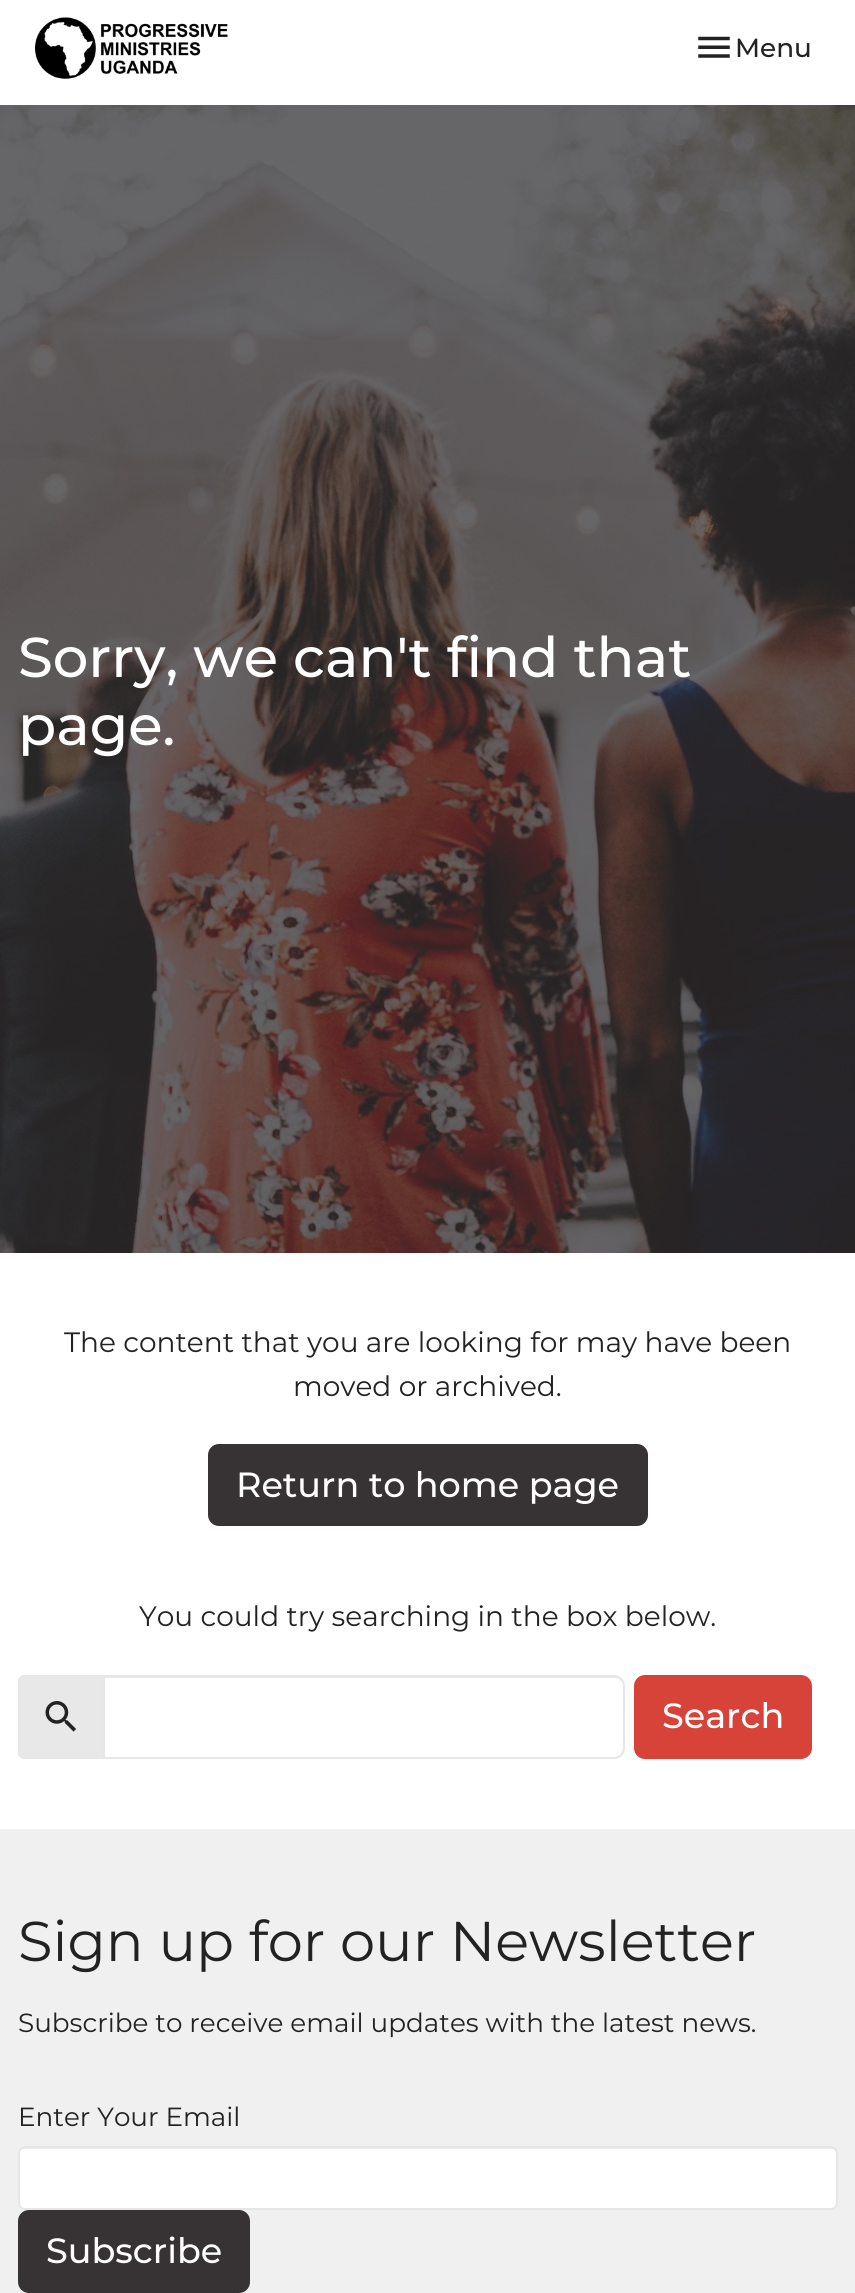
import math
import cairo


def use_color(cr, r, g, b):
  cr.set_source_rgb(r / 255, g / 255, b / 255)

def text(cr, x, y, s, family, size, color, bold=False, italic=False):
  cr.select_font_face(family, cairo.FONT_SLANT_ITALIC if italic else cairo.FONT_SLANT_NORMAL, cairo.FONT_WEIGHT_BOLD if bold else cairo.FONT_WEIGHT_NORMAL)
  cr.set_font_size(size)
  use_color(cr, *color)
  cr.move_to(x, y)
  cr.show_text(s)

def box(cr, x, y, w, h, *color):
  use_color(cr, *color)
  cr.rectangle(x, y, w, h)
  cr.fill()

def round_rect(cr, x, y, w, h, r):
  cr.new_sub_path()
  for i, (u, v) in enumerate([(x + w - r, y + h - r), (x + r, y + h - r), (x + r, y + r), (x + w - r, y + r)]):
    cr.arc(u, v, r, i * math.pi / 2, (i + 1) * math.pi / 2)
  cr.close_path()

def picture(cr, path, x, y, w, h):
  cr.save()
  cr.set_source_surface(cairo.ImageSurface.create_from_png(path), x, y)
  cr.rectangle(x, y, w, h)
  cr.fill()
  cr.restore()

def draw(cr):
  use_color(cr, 255, 255, 255)
  cr.paint()
  picture(cr, "img_01.png", 35, 17, 193, 62)
  picture(cr, "img_02.png", 698, 36, 32, 22)
  picture(cr, "img_03.png", 0, 105, 855, 1148)
  use_color(cr, 55, 50, 52)
  round_rect(cr, 208, 1444, 440, 82, 11)
  cr.fill()
  use_color(cr, 232, 232, 232)
  cr.new_path()
  cr.move_to(25, 1675)
  cr.line_to(103, 1675)
  cr.line_to(103, 1759)
  cr.line_to(25, 1759)
  cr.curve_to(21, 1759, 18, 1756, 18, 1752)
  cr.line_to(18, 1682)
  cr.curve_to(18, 1678, 21, 1675, 25, 1675)
  cr.close_path()
  cr.fill()
  use_color(cr, 230, 230, 230)
  cr.set_fill_rule(cairo.FILL_RULE_EVEN_ODD)
  cr.new_path()
  cr.move_to(24, 1675)
  cr.line_to(103, 1675)
  cr.line_to(103, 1759)
  cr.line_to(24, 1759)
  cr.curve_to(21, 1759, 18, 1756, 18, 1752)
  cr.line_to(18, 1682)
  cr.curve_to(18, 1678, 21, 1675, 24, 1675)
  cr.close_path()
  cr.move_to(24, 1676)
  cr.line_to(103, 1676)
  cr.line_to(103, 1757)
  cr.line_to(24, 1757)
  cr.curve_to(22, 1757, 19, 1755, 19, 1752)
  cr.line_to(19, 1682)
  cr.curve_to(19, 1679, 22, 1676, 24, 1676)
  cr.close_path()
  cr.fill()
  picture(cr, "img_04.png", 45, 1701, 31, 31)
  use_color(cr, 236, 236, 236)
  cr.set_fill_rule(cairo.FILL_RULE_WINDING)
  cr.new_path()
  cr.move_to(105, 1678)
  cr.line_to(614, 1678)
  cr.curve_to(619, 1678, 623, 1682, 623, 1687)
  cr.curve_to(623, 1682, 620, 1677, 614, 1677)
  cr.line_to(105, 1677)
  cr.close_path()
  cr.fill()
  cr.new_path()
  cr.move_to(104, 1676)
  cr.line_to(614, 1676)
  cr.curve_to(619.5, 1676, 624, 1680.5, 624, 1686)
  cr.line_to(624, 1748)
  cr.curve_to(624, 1753.5, 619.5, 1758, 614, 1758)
  cr.line_to(104, 1758)
  cr.close_path()
  use_color(cr, 230, 230, 230)
  cr.stroke()
  use_color(cr, 216, 67, 57)
  round_rect(cr, 634, 1675, 178, 84, 11)
  cr.fill()
  box(cr, 0, 1829, 855, 464, 240, 240, 240)
  use_color(cr, 255, 255, 255)
  round_rect(cr, 18, 2146, 820, 64, 7)
  cr.fill()
  use_color(cr, 236, 236, 236)
  cr.new_path()
  cr.move_to(24, 2149)
  cr.line_to(831, 2149)
  cr.curve_to(834, 2149, 836, 2151, 836, 2154)
  cr.line_to(836, 2205)
  cr.line_to(835, 2208)
  cr.curve_to(836, 2207, 837, 2205, 837, 2204)
  cr.line_to(837, 2152)
  cr.curve_to(837, 2149, 835, 2147, 832, 2147)
  cr.line_to(24, 2147)
  cr.curve_to(21, 2147, 19, 2149, 19, 2152)
  cr.line_to(19, 2154)
  cr.curve_to(19, 2151, 22, 2149, 24, 2149)
  cr.close_path()
  cr.fill()
  round_rect(cr, 19, 2147, 818, 62, 6)
  use_color(cr, 230, 230, 230)
  cr.stroke()
  use_color(cr, 55, 50, 52)
  round_rect(cr, 18, 2210, 232, 83, 11)
  cr.fill()
  text(cr, 735, 57, "Menu", "Montserrat Medium", 26.25, (34, 34, 34))
  text(cr, 18, 677, "Sorry, we can't find that", "Montserrat Medium", 56, (255, 255, 255))
  text(cr, 18, 745, "page.", "Montserrat Medium", 56, (255, 255, 255))
  text(cr, 64, 1352, "The content that you are looking for may have been", "Montserrat", 28, (34, 34, 34))
  text(cr, 293, 1396, "moved or archived.", "Montserrat", 28, (34, 34, 34))
  text(cr, 236, 1497, "Return to home page", "Montserrat Medium", 35, (255, 255, 255))
  text(cr, 139, 1626, "You could try searching in the box below.", "Montserrat", 28, (34, 34, 34))
  text(cr, 662, 1728, "Search", "Montserrat Medium", 35, (255, 255, 255))
  text(cr, 18, 1961, "Sign up for our Newsletter", "Montserrat", 56, (34, 34, 34))
  text(cr, 18, 2032, "Subscribe to receive email updates with the latest news.", "Montserrat", 26.25, (34, 34, 34))
  text(cr, 18, 2126, "Enter Your Email", "Montserrat", 26.25, (34, 34, 34))
  text(cr, 46, 2263, "Subscribe", "Montserrat Medium", 35, (255, 255, 255))


surface = cairo.ImageSurface(cairo.FORMAT_RGB24, 855, 2293)
cr = cairo.Context(surface)
options = cairo.FontOptions()
options.set_hint_metrics(cairo.HINT_METRICS_OFF)
options.set_hint_style(cairo.HINT_STYLE_NONE)
cr.set_font_options(options)
cr.set_miter_limit(4)
draw(cr)
surface.write_to_png("out.png")
